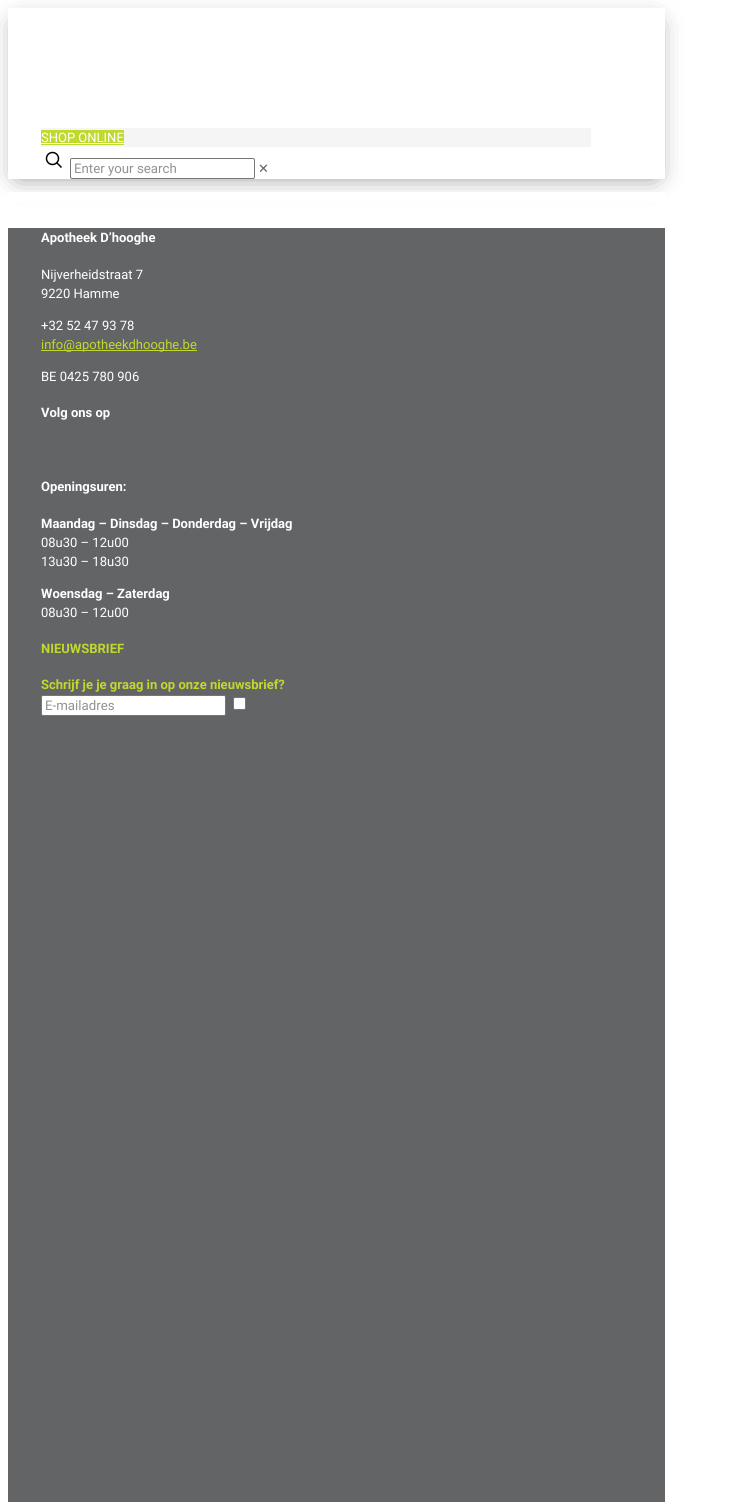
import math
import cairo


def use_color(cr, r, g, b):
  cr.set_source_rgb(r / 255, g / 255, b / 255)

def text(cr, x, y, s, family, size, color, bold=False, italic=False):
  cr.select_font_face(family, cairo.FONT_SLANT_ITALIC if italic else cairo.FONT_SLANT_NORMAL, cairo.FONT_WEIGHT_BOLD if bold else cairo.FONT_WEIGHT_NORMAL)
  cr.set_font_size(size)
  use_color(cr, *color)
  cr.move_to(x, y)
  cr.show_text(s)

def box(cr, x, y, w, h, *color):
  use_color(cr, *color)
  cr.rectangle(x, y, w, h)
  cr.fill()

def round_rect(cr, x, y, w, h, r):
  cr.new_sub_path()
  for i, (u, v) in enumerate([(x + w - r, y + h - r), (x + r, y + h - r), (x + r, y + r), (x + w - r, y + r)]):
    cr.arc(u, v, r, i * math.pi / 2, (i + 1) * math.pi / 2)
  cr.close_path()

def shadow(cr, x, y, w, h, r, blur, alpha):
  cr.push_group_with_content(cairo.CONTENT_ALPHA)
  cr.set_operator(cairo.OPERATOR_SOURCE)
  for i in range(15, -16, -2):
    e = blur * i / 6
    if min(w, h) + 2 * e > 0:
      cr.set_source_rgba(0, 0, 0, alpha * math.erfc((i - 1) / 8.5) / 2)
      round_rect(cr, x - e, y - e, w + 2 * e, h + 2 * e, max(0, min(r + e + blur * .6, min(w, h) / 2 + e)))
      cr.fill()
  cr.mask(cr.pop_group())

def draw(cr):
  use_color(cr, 255, 255, 255)
  cr.paint()
  cr.save()
  cr.set_fill_rule(cairo.FILL_RULE_EVEN_ODD)
  cr.new_path()
  cr.move_to(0, 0)
  cr.line_to(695, 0)
  cr.line_to(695, 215)
  cr.line_to(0, 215)
  cr.close_path()
  cr.move_to(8, 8)
  cr.line_to(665, 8)
  cr.line_to(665, 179)
  cr.line_to(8, 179)
  cr.close_path()
  cr.clip()
  use_color(cr, 0, 0, 0)
  shadow(cr, 18, 24, 637, 151, 0, 13, 0.5)
  cr.restore()
  box(cr, 41, 128, 550, 19, 245, 245, 245)
  box(cr, 41, 130, 83, 15, 193, 216, 47)
  box(cr, 41, 143, 83, 1, 255, 255, 255)
  cr.arc(52.5, 158.5, 6, 0, 2 * math.pi)
  use_color(cr, 0, 0, 0)
  cr.set_line_width(1.5)
  cr.stroke()
  cr.new_path()
  cr.move_to(56.5, 162.5)
  cr.line_to(61.5, 167.5)
  cr.stroke()
  round_rect(cr, 70.5, 158.5, 184, 20, 1.5)
  use_color(cr, 118, 118, 118)
  cr.set_line_width(1)
  cr.stroke()
  box(cr, 8, 192, 657, 10, 255, 255, 255)
  box(cr, 8, 228, 657, 1274, 99, 100, 102)
  box(cr, 41, 350, 156, 1, 193, 216, 47)
  use_color(cr, 255, 255, 255)
  round_rect(cr, 41.5, 695.5, 184, 20, 1.5)
  cr.fill_preserve()
  use_color(cr, 118, 118, 118)
  cr.stroke()
  use_color(cr, 255, 255, 255)
  round_rect(cr, 233.5, 697.5, 12, 12, 1.5)
  cr.fill_preserve()
  use_color(cr, 118, 118, 118)
  cr.stroke()
  text(cr, 41, 142, "SHOP ONLINE", "Roboto", 13, (255, 255, 255))
  text(cr, 74, 173, "Enter your search", "Roboto", 13.25, (146, 146, 146))
  text(cr, 258, 173, "✕", "DejaVu Sans", 13, (98, 98, 98))
  text(cr, 41, 242, "Apotheek D’hooghe", "Roboto", 13, (255, 255, 255), bold=True)
  text(cr, 41, 279, "Nijverheidstraat 7", "Roboto", 13, (255, 255, 255))
  text(cr, 41, 298, "9220 Hamme", "Roboto", 13, (255, 255, 255))
  text(cr, 41, 330, "+32 52 47 93 78", "Roboto", 13, (255, 255, 255))
  text(cr, 41, 349, "info@apotheekdhooghe.be", "Roboto", 13, (193, 216, 47))
  text(cr, 41, 381, "BE 0425 780 906", "Roboto", 13, (255, 255, 255))
  text(cr, 41, 417, "Volg ons op", "Roboto", 13, (255, 255, 255), bold=True)
  text(cr, 41, 491, "Openingsuren:", "Roboto", 13, (255, 255, 255), bold=True)
  text(cr, 41, 528, "Maandag – Dinsdag – Donderdag – Vrijdag", "Roboto", 13, (255, 255, 255), bold=True)
  text(cr, 41, 547, "08u30 – 12u00", "Roboto", 13, (255, 255, 255))
  text(cr, 41, 566, "13u30 – 18u30", "Roboto", 13, (255, 255, 255))
  text(cr, 41, 598, "Woensdag – Zaterdag", "Roboto", 13, (255, 255, 255), bold=True)
  text(cr, 41, 617, "08u30 – 12u00", "Roboto", 13, (255, 255, 255))
  text(cr, 41, 653, "NIEUWSBRIEF", "Roboto", 13, (193, 216, 47), bold=True)
  text(cr, 41, 689, "Schrijf je je graag in op onze nieuwsbrief?", "Roboto", 13, (193, 216, 47), bold=True)
  text(cr, 45, 710, "E-mailadres", "Roboto", 13.25, (146, 146, 146))


surface = cairo.ImageSurface(cairo.FORMAT_RGB24, 740, 1502)
cr = cairo.Context(surface)
options = cairo.FontOptions()
options.set_hint_metrics(cairo.HINT_METRICS_OFF)
options.set_hint_style(cairo.HINT_STYLE_NONE)
cr.set_font_options(options)
cr.set_miter_limit(4)
draw(cr)
surface.write_to_png("out.png")
